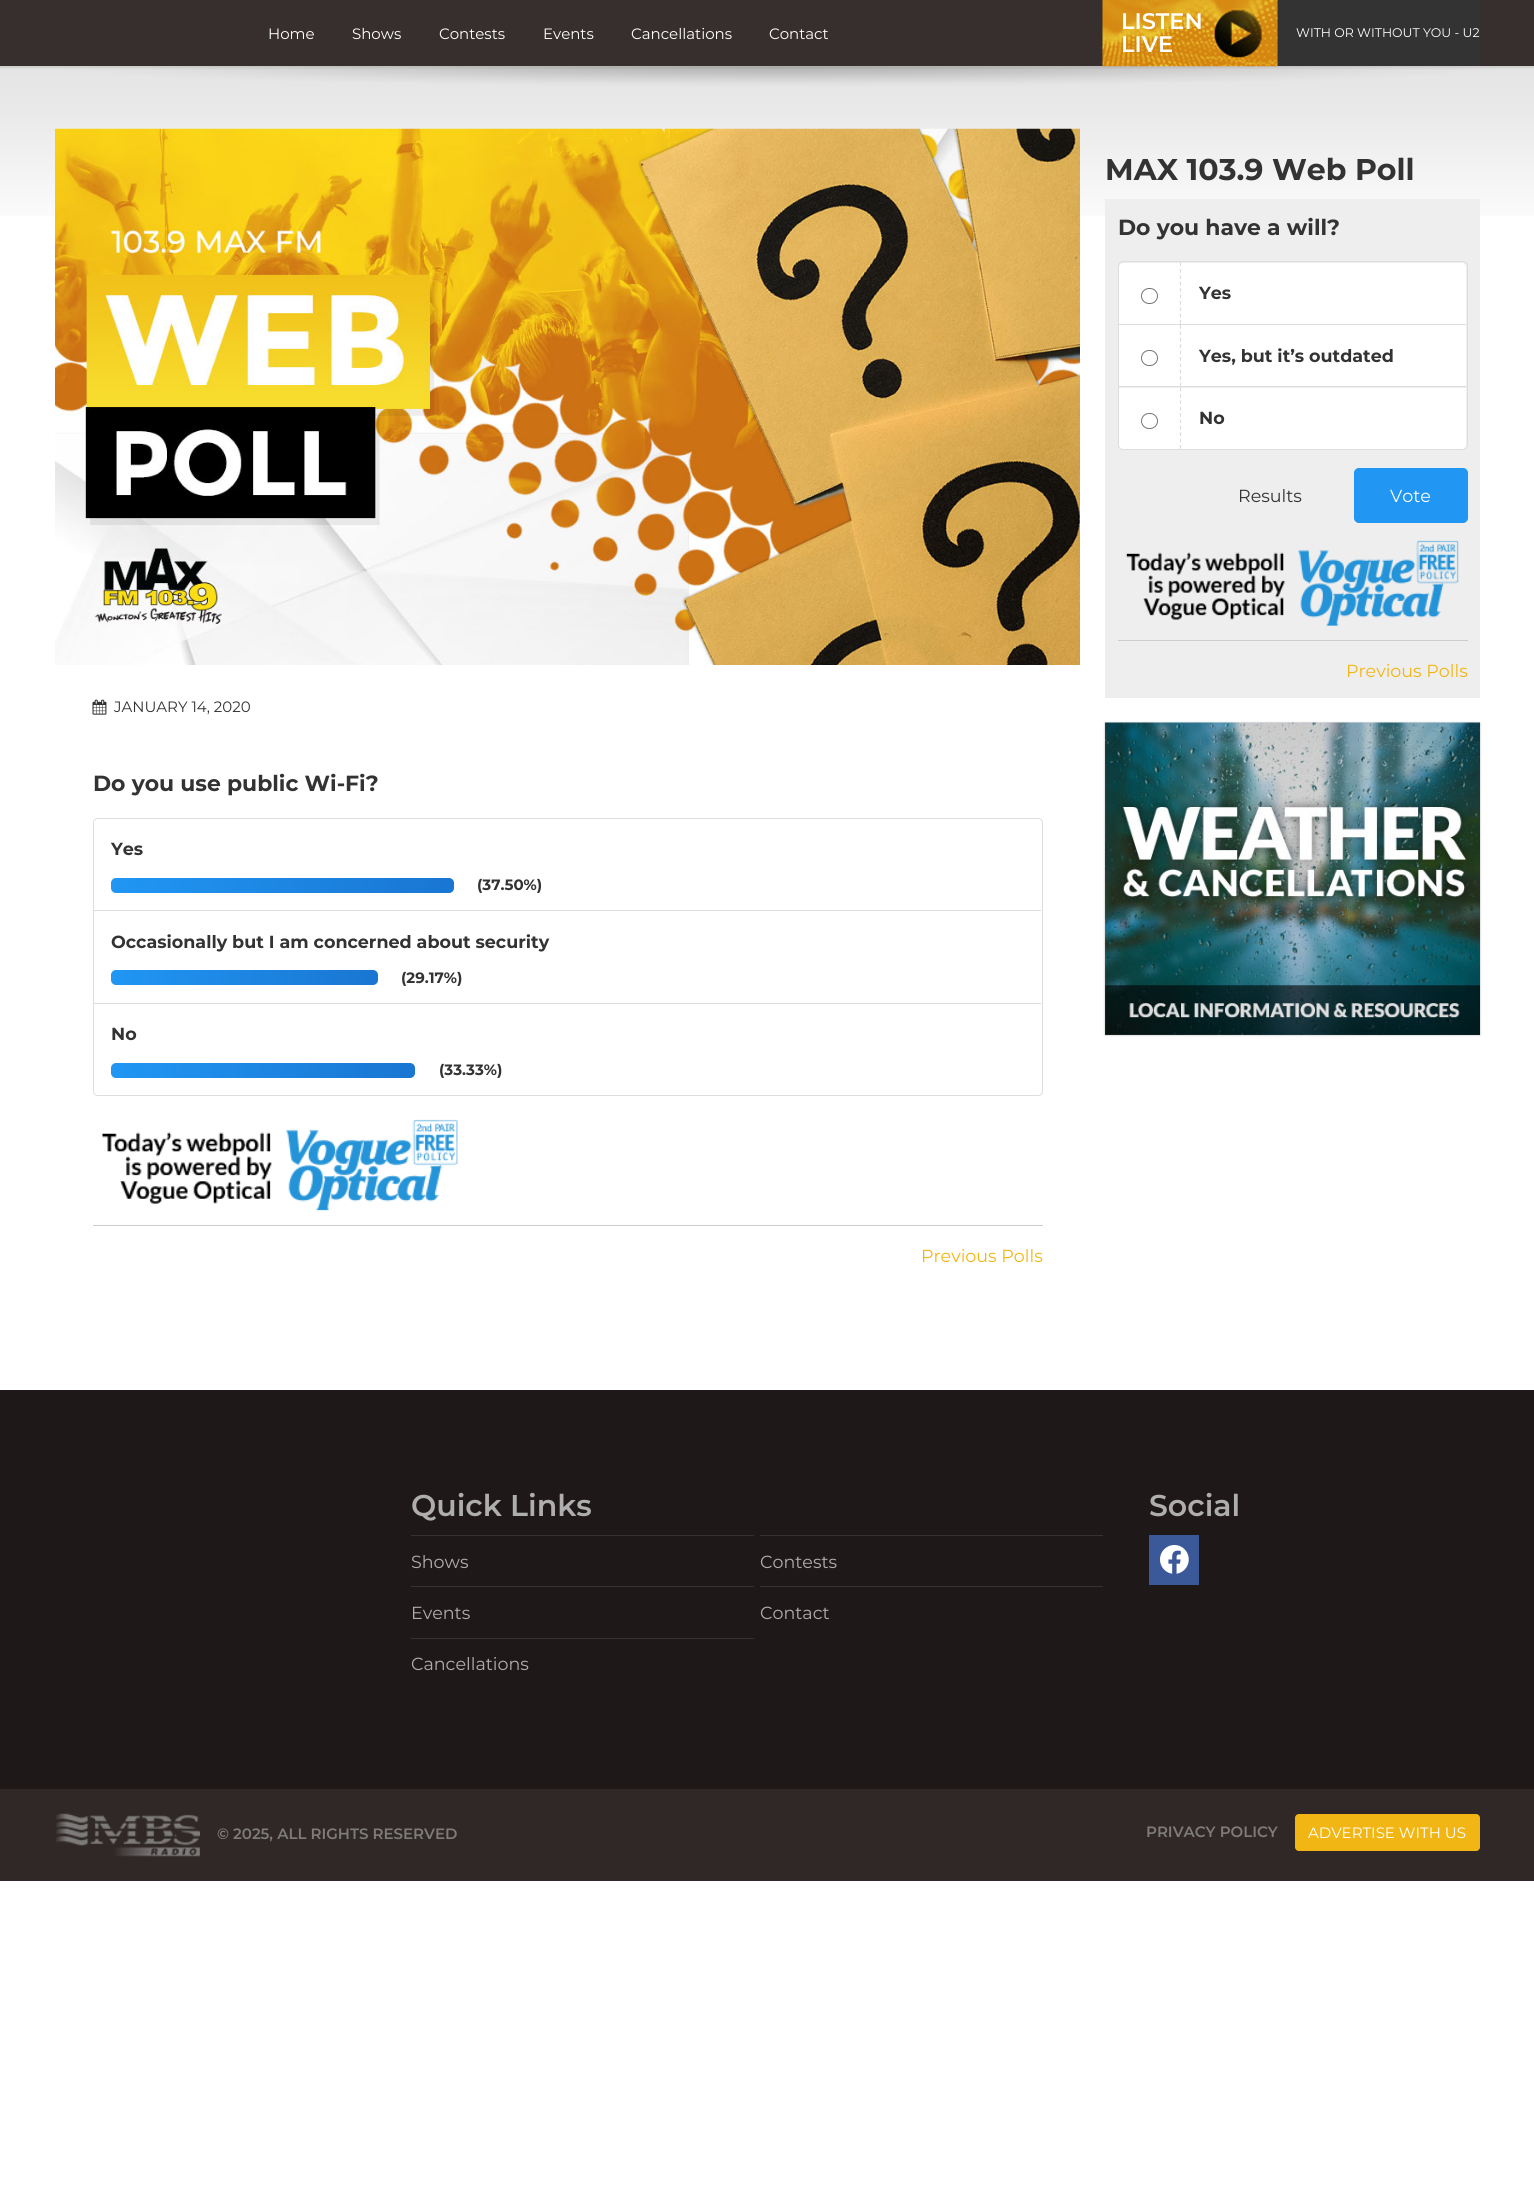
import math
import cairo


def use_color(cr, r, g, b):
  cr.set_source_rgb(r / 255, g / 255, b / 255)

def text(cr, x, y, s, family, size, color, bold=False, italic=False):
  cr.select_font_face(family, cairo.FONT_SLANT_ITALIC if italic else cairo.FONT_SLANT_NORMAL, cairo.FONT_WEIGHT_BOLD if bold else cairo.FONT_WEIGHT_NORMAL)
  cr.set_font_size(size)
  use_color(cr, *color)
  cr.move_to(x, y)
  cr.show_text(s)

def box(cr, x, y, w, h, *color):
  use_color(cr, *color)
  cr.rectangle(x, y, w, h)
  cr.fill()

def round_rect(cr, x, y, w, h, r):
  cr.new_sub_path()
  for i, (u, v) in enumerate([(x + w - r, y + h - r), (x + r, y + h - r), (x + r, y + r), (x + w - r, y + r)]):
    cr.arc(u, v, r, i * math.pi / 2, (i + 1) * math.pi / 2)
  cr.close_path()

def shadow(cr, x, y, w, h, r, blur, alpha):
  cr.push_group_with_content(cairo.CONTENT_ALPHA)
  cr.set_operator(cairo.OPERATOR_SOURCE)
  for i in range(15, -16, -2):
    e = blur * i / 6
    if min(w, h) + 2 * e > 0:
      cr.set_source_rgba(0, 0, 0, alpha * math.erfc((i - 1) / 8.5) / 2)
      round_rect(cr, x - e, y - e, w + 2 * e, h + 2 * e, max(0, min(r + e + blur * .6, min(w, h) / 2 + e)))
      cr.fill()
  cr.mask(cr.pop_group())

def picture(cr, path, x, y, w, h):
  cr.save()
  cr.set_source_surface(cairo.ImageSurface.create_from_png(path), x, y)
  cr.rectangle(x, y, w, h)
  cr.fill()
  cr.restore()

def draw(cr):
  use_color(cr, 255, 255, 255)
  cr.paint()
  picture(cr, "img_02.png", 0, 66, 1534, 150)
  use_color(cr, 0, 0, 0)
  shadow(cr, 0, 0, 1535, 66, 0, 2, 0.3)
  box(cr, 0, 0, 1534, 66, 55, 47, 45)
  box(cr, 1277, 0, 203, 66, 51, 51, 51)
  picture(cr, "img_01.png", 1102, 0, 176, 67)
  box(cr, 1105, 199, 375, 499, 238, 238, 238)
  round_rect(cr, 1118.5, 261.5, 349, 188, 4.5)
  use_color(cr, 221, 221, 221)
  cr.set_line_width(1)
  cr.stroke()
  use_color(cr, 255, 255, 255)
  cr.new_path()
  cr.move_to(1123, 263)
  cr.line_to(1462, 263)
  cr.curve_to(1464, 263, 1466, 265, 1466, 267)
  cr.line_to(1466, 324)
  cr.line_to(1119, 324)
  cr.line_to(1119, 267)
  cr.curve_to(1119, 265, 1121, 263, 1123, 263)
  cr.close_path()
  cr.fill()
  cr.new_path()
  cr.move_to(1180.5, 262.5)
  cr.line_to(1180.5, 324)
  use_color(cr, 221, 221, 221)
  cr.set_line_width(1.2)
  cr.set_dash([3.75, 2.64])
  cr.stroke()
  round_rect(cr, 1141.5, 288.5, 16, 15, 7.5)
  use_color(cr, 118, 118, 118)
  cr.set_line_width(1)
  cr.set_dash([])
  cr.stroke()
  box(cr, 1119, 324, 347, 1, 221, 221, 221)
  box(cr, 1119, 325, 347, 61, 255, 255, 255)
  cr.new_path()
  cr.move_to(1180.5, 325)
  cr.line_to(1180.5, 386)
  use_color(cr, 221, 221, 221)
  cr.set_line_width(1.2)
  cr.set_dash([3.75, 2.64])
  cr.stroke()
  round_rect(cr, 1141.5, 350.5, 16, 15, 7.5)
  use_color(cr, 118, 118, 118)
  cr.set_line_width(1)
  cr.set_dash([])
  cr.stroke()
  box(cr, 1119, 386, 347, 1, 221, 221, 221)
  use_color(cr, 255, 255, 255)
  cr.new_path()
  cr.move_to(1119, 388)
  cr.line_to(1466, 388)
  cr.line_to(1466, 445)
  cr.curve_to(1466, 447, 1464, 449, 1462, 449)
  cr.line_to(1123, 449)
  cr.curve_to(1121, 449, 1119, 447, 1119, 445)
  cr.close_path()
  cr.fill()
  cr.new_path()
  cr.move_to(1180.5, 387.5)
  cr.line_to(1180.5, 449)
  use_color(cr, 221, 221, 221)
  cr.set_line_width(1.2)
  cr.set_dash([3.75, 2.64])
  cr.stroke()
  round_rect(cr, 1141.5, 413.5, 16, 15, 7.5)
  use_color(cr, 118, 118, 118)
  cr.set_line_width(1)
  cr.set_dash([])
  cr.stroke()
  use_color(cr, 33, 150, 243)
  round_rect(cr, 1354.5, 468.5, 113, 54, 4.5)
  cr.fill_preserve()
  cr.stroke()
  picture(cr, "img_03.png", 1125, 540, 334, 86)
  box(cr, 1118, 640, 350, 1, 204, 204, 204)
  use_color(cr, 0, 0, 0)
  shadow(cr, 1105, 723, 375, 312, 0, 1, 0.3)
  picture(cr, "img_04.png", 1105, 722, 375, 313)
  picture(cr, "img_05.png", 55, 128, 1025, 537)
  picture(cr, "img_06.png", 92, 699, 15, 16)
  round_rect(cr, 93.5, 818.5, 949, 277, 4.5)
  use_color(cr, 221, 221, 221)
  cr.stroke()
  use_color(cr, 255, 255, 255)
  cr.new_path()
  cr.move_to(98, 819)
  cr.line_to(1037, 819)
  cr.curve_to(1039, 819, 1041, 821, 1041, 823)
  cr.line_to(1041, 910)
  cr.line_to(94, 910)
  cr.line_to(94, 823)
  cr.curve_to(94, 821, 96, 819, 98, 819)
  cr.close_path()
  cr.fill()
  gradient = cairo.LinearGradient(111, 885, 454, 885)
  gradient.add_color_stop_rgba(0, 0.129, 0.588, 0.953, 1)
  gradient.add_color_stop_rgba(1, 0.098, 0.463, 0.824, 1)
  cr.set_source(gradient)
  round_rect(cr, 111, 878, 343, 15, 5)
  cr.fill()
  box(cr, 94, 910, 947, 1, 221, 221, 221)
  gradient = cairo.LinearGradient(111, 978, 378, 978)
  gradient.add_color_stop_rgba(0, 0.129, 0.588, 0.953, 1)
  gradient.add_color_stop_rgba(1, 0.098, 0.463, 0.824, 1)
  cr.set_source(gradient)
  round_rect(cr, 111, 970, 267, 15, 5)
  cr.fill()
  box(cr, 94, 1003, 947, 1, 221, 221, 221)
  use_color(cr, 255, 255, 255)
  cr.new_path()
  cr.move_to(94, 1004)
  cr.line_to(1041, 1004)
  cr.line_to(1041, 1091)
  cr.curve_to(1041, 1093, 1039, 1095, 1037, 1095)
  cr.line_to(98, 1095)
  cr.curve_to(96, 1095, 94, 1093, 94, 1091)
  cr.close_path()
  cr.fill()
  gradient = cairo.LinearGradient(111, 1070, 415, 1070)
  gradient.add_color_stop_rgba(0, 0.129, 0.588, 0.953, 1)
  gradient.add_color_stop_rgba(1, 0.098, 0.463, 0.824, 1)
  cr.set_source(gradient)
  round_rect(cr, 111, 1063, 304, 15, 5)
  cr.fill()
  picture(cr, "img_07.png", 100, 1119, 358, 92)
  box(cr, 93, 1225, 950, 1, 204, 204, 204)
  box(cr, 0, 1390, 1534, 399, 30, 25, 24)
  box(cr, 411, 1535, 343, 1, 55, 49, 48)
  box(cr, 760, 1535, 343, 1, 55, 49, 48)
  box(cr, 411, 1586, 343, 1, 55, 49, 48)
  box(cr, 760, 1586, 343, 1, 55, 49, 48)
  box(cr, 411, 1638, 343, 1, 55, 49, 48)
  box(cr, 1149, 1535, 50, 50, 59, 89, 152)
  picture(cr, "img_08.png", 1160, 1545, 29, 29)
  box(cr, 0, 1789, 1534, 92, 47, 40, 38)
  picture(cr, "img_09.png", 56, 1813, 144, 44)
  use_color(cr, 242, 182, 20)
  round_rect(cr, 1295.5, 1814.5, 184, 36, 3.5)
  cr.fill_preserve()
  cr.stroke()
  text(cr, 268, 39, "Home", "Montserrat", 15, (255, 255, 255))
  text(cr, 352, 39, "Shows", "Montserrat", 15, (255, 255, 255))
  text(cr, 439, 39, "Contests", "Montserrat", 15, (255, 255, 255))
  text(cr, 543, 39, "Events", "Montserrat", 15, (255, 255, 255))
  text(cr, 631, 39, "Cancellations", "Montserrat", 15, (255, 255, 255))
  text(cr, 769, 39, "Contact", "Montserrat", 15, (255, 255, 255))
  text(cr, 1121, 29, "LISTEN", "Montserrat SemiBold", 22.5, (255, 255, 255))
  text(cr, 1121, 52, "LIVE", "Montserrat SemiBold", 22.5, (255, 255, 255))
  text(cr, 1296, 37, "WITH OR WITHOUT YOU - U2", "Montserrat", 12.5, (255, 255, 255))
  text(cr, 1105, 180, "MAX 103.9 Web Poll", "Montserrat", 30, (51, 51, 51), bold=True)
  text(cr, 1118, 235, "Do you have a will?", "Montserrat", 21.9, (51, 51, 51), bold=True)
  text(cr, 1199, 299, "Yes", "Montserrat", 17.5, (51, 51, 51), bold=True)
  text(cr, 1199, 362, "Yes, but it’s outdated", "Montserrat", 17.5, (51, 51, 51), bold=True)
  text(cr, 1199, 424, "No", "Montserrat", 17.5, (51, 51, 51), bold=True)
  text(cr, 1238, 502, "Results", "Montserrat", 17.5, (51, 51, 51))
  text(cr, 1390, 502, "Vote", "Montserrat", 17.5, (255, 255, 255))
  text(cr, 1346, 677, "Previous Polls", "Montserrat", 17.5, (242, 182, 20))
  text(cr, 114, 712, "JANUARY 14, 2020", "Montserrat", 15, (51, 51, 51))
  text(cr, 93, 791, "Do you use public Wi-Fi?", "Montserrat", 21.9, (51, 51, 51), bold=True)
  text(cr, 111, 855, "Yes", "Montserrat", 17.5, (51, 51, 51), bold=True)
  text(cr, 477, 890, "(37.50%)", "Montserrat", 15, (51, 51, 51), bold=True)
  text(cr, 111, 948, "Occasionally but I am concerned about security", "Montserrat", 17.5, (51, 51, 51), bold=True)
  text(cr, 401, 983, "(29.17%)", "Montserrat", 15, (51, 51, 51), bold=True)
  text(cr, 111, 1040, "No", "Montserrat", 17.5, (51, 51, 51), bold=True)
  text(cr, 439, 1075, "(33.33%)", "Montserrat", 15, (51, 51, 51), bold=True)
  text(cr, 921, 1262, "Previous Polls", "Montserrat", 17.5, (242, 182, 20))
  text(cr, 411, 1516, "Quick Links", "Montserrat SemiBold", 30, (175, 173, 173))
  text(cr, 411, 1568, "Shows", "Montserrat", 17.5, (175, 173, 173))
  text(cr, 760, 1568, "Contests", "Montserrat", 17.5, (175, 173, 173))
  text(cr, 411, 1619, "Events", "Montserrat", 17.5, (175, 173, 173))
  text(cr, 760, 1619, "Contact", "Montserrat", 17.5, (175, 173, 173))
  text(cr, 411, 1670, "Cancellations", "Montserrat", 17.5, (175, 173, 173))
  text(cr, 1149, 1516, "Social", "Montserrat SemiBold", 30, (175, 173, 173))
  text(cr, 217, 1839, "© 2025, ALL RIGHTS RESERVED", "Montserrat SemiBold", 15, (126, 123, 123))
  text(cr, 1146, 1837, "PRIVACY POLICY", "Montserrat SemiBold", 15, (126, 123, 123))
  text(cr, 1308, 1838, "ADVERTISE WITH US", "Montserrat", 15, (255, 255, 255))


surface = cairo.ImageSurface(cairo.FORMAT_RGB24, 1534, 2199)
cr = cairo.Context(surface)
options = cairo.FontOptions()
options.set_hint_metrics(cairo.HINT_METRICS_OFF)
options.set_hint_style(cairo.HINT_STYLE_NONE)
cr.set_font_options(options)
cr.set_miter_limit(4)
draw(cr)
surface.write_to_png("out.png")
